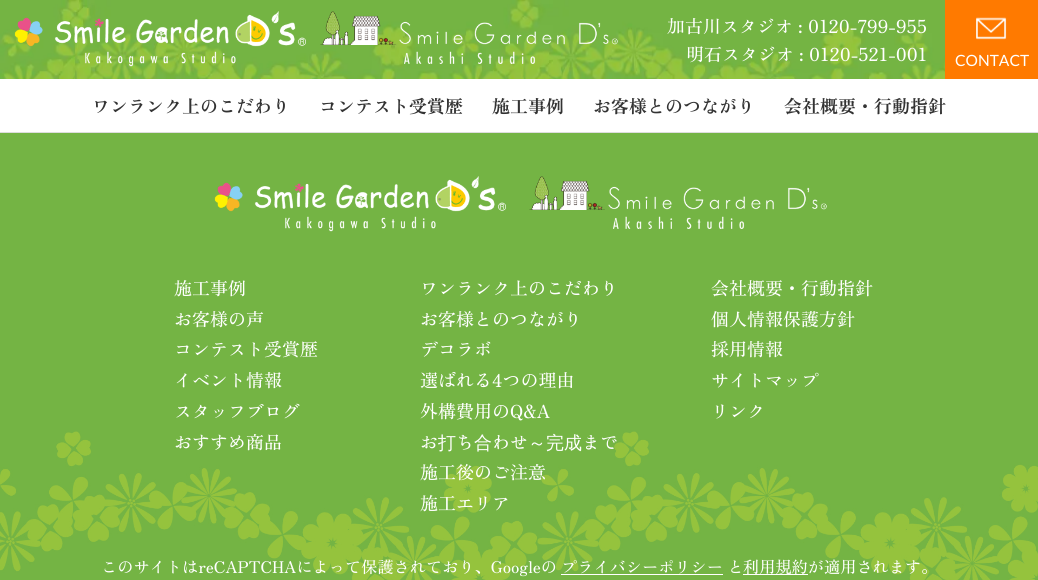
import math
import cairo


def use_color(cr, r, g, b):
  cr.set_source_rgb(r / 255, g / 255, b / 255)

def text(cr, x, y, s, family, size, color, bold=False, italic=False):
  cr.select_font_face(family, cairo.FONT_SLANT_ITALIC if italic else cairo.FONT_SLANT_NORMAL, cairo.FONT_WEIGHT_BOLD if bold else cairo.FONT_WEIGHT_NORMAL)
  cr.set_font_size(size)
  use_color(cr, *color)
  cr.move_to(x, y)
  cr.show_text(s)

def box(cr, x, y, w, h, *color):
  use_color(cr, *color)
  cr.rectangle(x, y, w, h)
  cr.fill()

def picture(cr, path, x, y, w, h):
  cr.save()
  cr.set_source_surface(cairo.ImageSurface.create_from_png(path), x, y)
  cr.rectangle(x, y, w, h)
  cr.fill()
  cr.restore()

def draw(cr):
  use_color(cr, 116, 180, 68)
  cr.paint()
  box(cr, 0, 79, 1038, 53, 255, 255, 255)
  box(cr, 0, 132, 1038, 1, 221, 221, 221)
  picture(cr, "img_01.png", 0, 0, 945, 79)
  picture(cr, "img_02.png", 14, 11, 292, 56)
  picture(cr, "img_03.png", 320, 11, 298, 53)
  box(cr, 945, 0, 93, 79, 255, 122, 0)
  picture(cr, "img_04.png", 976, 17, 31, 23)
  picture(cr, "img_05.png", 0, 431, 1038, 149)
  picture(cr, "img_06.png", 214, 176, 292, 56)
  picture(cr, "img_07.png", 529, 176, 298, 53)
  box(cr, 561, 574, 162, 1, 255, 255, 255)
  box(cr, 743, 574, 65, 1, 255, 255, 255)
  text(cr, 667, 33, "加古川スタジオ : 0120-799-955", "Zen Old Mincho Medium", 18, (255, 255, 255))
  text(cr, 686, 61, "明石スタジオ : 0120-521-001", "Zen Old Mincho Medium", 18, (255, 255, 255))
  text(cr, 955, 66, "CONTACT", "Lato", 15.5, (255, 255, 255))
  text(cr, 92, 113, "ワンランク上のこだわり", "Zen Old Mincho", 18, (51, 51, 51), bold=True)
  text(cr, 319, 113, "コンテスト受賞歴", "Zen Old Mincho", 18, (51, 51, 51), bold=True)
  text(cr, 492, 113, "施工事例", "Zen Old Mincho", 18, (51, 51, 51), bold=True)
  text(cr, 593, 113, "お客様とのつながり", "Zen Old Mincho", 18, (51, 51, 51), bold=True)
  text(cr, 784, 113, "会社概要・行動指針", "Zen Old Mincho", 18, (51, 51, 51), bold=True)
  text(cr, 174, 295, "施工事例", "Zen Old Mincho Medium", 18, (255, 255, 255))
  text(cr, 174, 326, "お客様の声", "Zen Old Mincho Medium", 18, (255, 255, 255))
  text(cr, 174, 356, "コンテスト受賞歴", "Zen Old Mincho Medium", 18, (255, 255, 255))
  text(cr, 174, 387, "イベント情報", "Zen Old Mincho Medium", 18, (255, 255, 255))
  text(cr, 174, 418, "スタッフブログ", "Zen Old Mincho Medium", 18, (255, 255, 255))
  text(cr, 174, 449, "おすすめ商品", "Zen Old Mincho Medium", 18, (255, 255, 255))
  text(cr, 420, 295, "ワンランク上のこだわり", "Zen Old Mincho Medium", 18, (255, 255, 255))
  text(cr, 420, 326, "お客様とのつながり", "Zen Old Mincho Medium", 18, (255, 255, 255))
  text(cr, 420, 356, "デコラボ", "Zen Old Mincho Medium", 18, (255, 255, 255))
  text(cr, 420, 387, "選ばれる4つの理由", "Zen Old Mincho Medium", 18, (255, 255, 255))
  text(cr, 420, 418, "外構費用のQ&A", "Zen Old Mincho Medium", 18, (255, 255, 255))
  text(cr, 420, 449, "お", "Zen Old Mincho Medium", 18, (255, 255, 255))
  text(cr, 438, 449, "打", "WenQuanYi Zen Hei Medium", 18, (255, 255, 255))
  text(cr, 456, 449, "ち", "Zen Old Mincho Medium", 18, (255, 255, 255))
  text(cr, 474, 449, "合", "WenQuanYi Zen Hei Medium", 18, (255, 255, 255))
  text(cr, 492, 449, "わせ", "Zen Old Mincho Medium", 18, (255, 255, 255))
  text(cr, 528, 449, "～完成", "WenQuanYi Zen Hei Medium", 18, (255, 255, 255))
  text(cr, 582, 449, "まで", "Zen Old Mincho Medium", 18, (255, 255, 255))
  text(cr, 420, 479, "施工後のご注意", "Zen Old Mincho Medium", 18, (255, 255, 255))
  text(cr, 420, 510, "施工エリア", "Zen Old Mincho Medium", 18, (255, 255, 255))
  text(cr, 711, 295, "会社概要・行動指針", "Zen Old Mincho Medium", 18, (255, 255, 255))
  text(cr, 711, 326, "個人情報保護方針", "Zen Old Mincho Medium", 18, (255, 255, 255))
  text(cr, 711, 356, "採用情報", "Zen Old Mincho Medium", 18, (255, 255, 255))
  text(cr, 711, 387, "サイトマップ", "Zen Old Mincho Medium", 18, (255, 255, 255))
  text(cr, 711, 418, "リンク", "Zen Old Mincho Medium", 18, (255, 255, 255))
  text(cr, 101, 573, "このサイトはreCAPTCHAによって保護されており、Googleの", "Zen Old Mincho Medium", 16.2, (255, 255, 255))
  text(cr, 561, 573, "プライバシーポリシー と", "Zen Old Mincho Medium", 16.2, (255, 255, 255))
  text(cr, 743, 573, "利用規約が適用されます。", "Zen Old Mincho Medium", 16.2, (255, 255, 255))


surface = cairo.ImageSurface(cairo.FORMAT_RGB24, 1038, 580)
cr = cairo.Context(surface)
options = cairo.FontOptions()
options.set_hint_metrics(cairo.HINT_METRICS_OFF)
options.set_hint_style(cairo.HINT_STYLE_NONE)
cr.set_font_options(options)
cr.set_miter_limit(4)
draw(cr)
surface.write_to_png("out.png")
